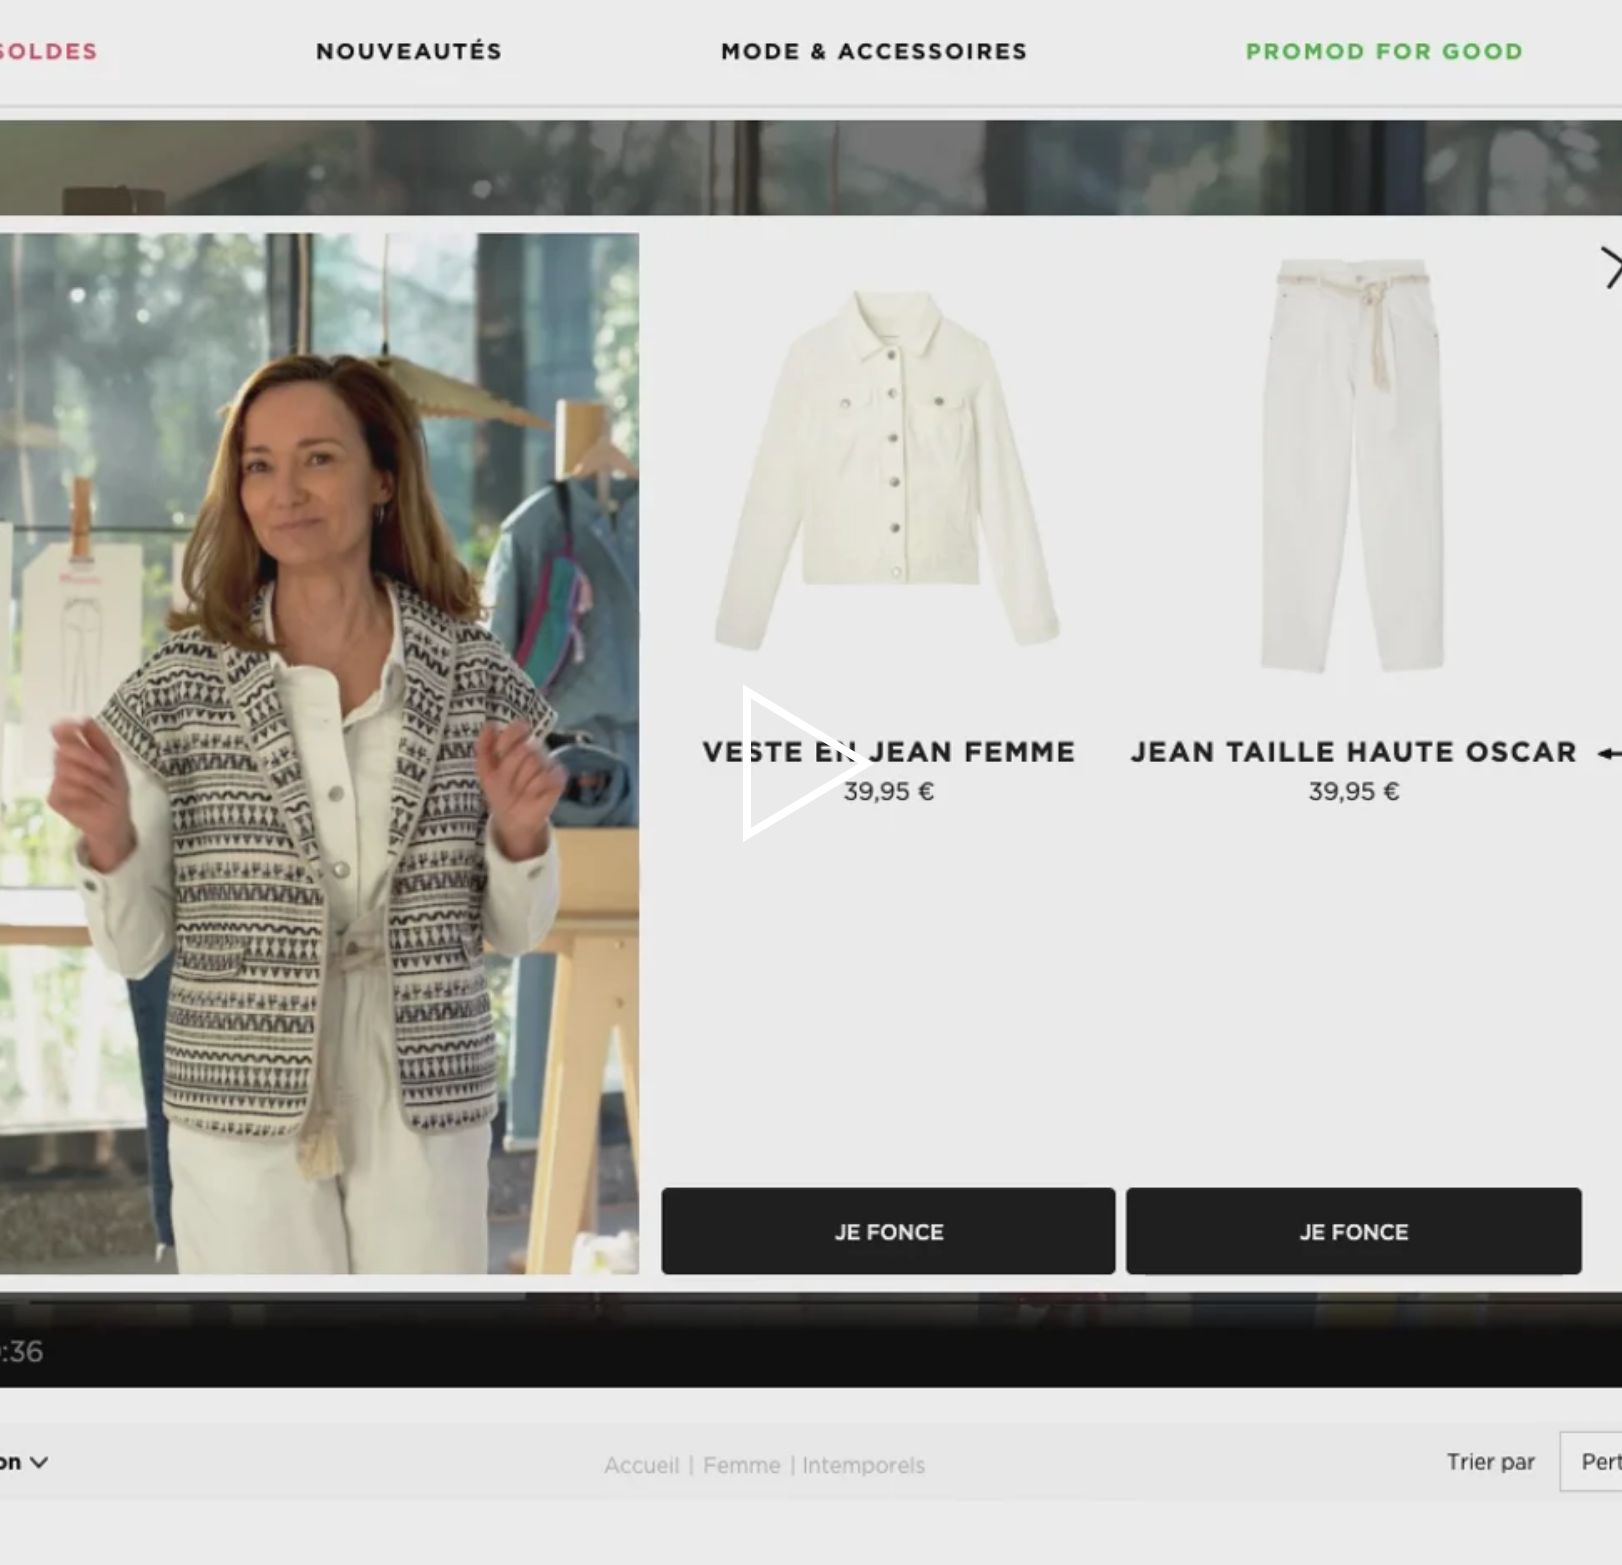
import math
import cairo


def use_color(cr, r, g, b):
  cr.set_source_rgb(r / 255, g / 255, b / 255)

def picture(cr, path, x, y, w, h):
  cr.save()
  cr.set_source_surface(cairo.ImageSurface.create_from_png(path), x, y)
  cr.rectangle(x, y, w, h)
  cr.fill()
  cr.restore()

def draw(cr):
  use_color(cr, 255, 255, 255)
  cr.paint()
  picture(cr, "img_01.png", 0, 0, 1622, 1565)
  cr.new_path()
  cr.move_to(747, 835)
  cr.line_to(747, 691.5)
  cr.line_to(866.5, 763.5)
  cr.close_path()
  use_color(cr, 255, 255, 255)
  cr.set_line_width(8)
  cr.stroke()


surface = cairo.ImageSurface(cairo.FORMAT_RGB24, 1622, 1565)
cr = cairo.Context(surface)
options = cairo.FontOptions()
options.set_hint_metrics(cairo.HINT_METRICS_OFF)
options.set_hint_style(cairo.HINT_STYLE_NONE)
cr.set_font_options(options)
cr.set_miter_limit(4)
draw(cr)
surface.write_to_png("out.png")
